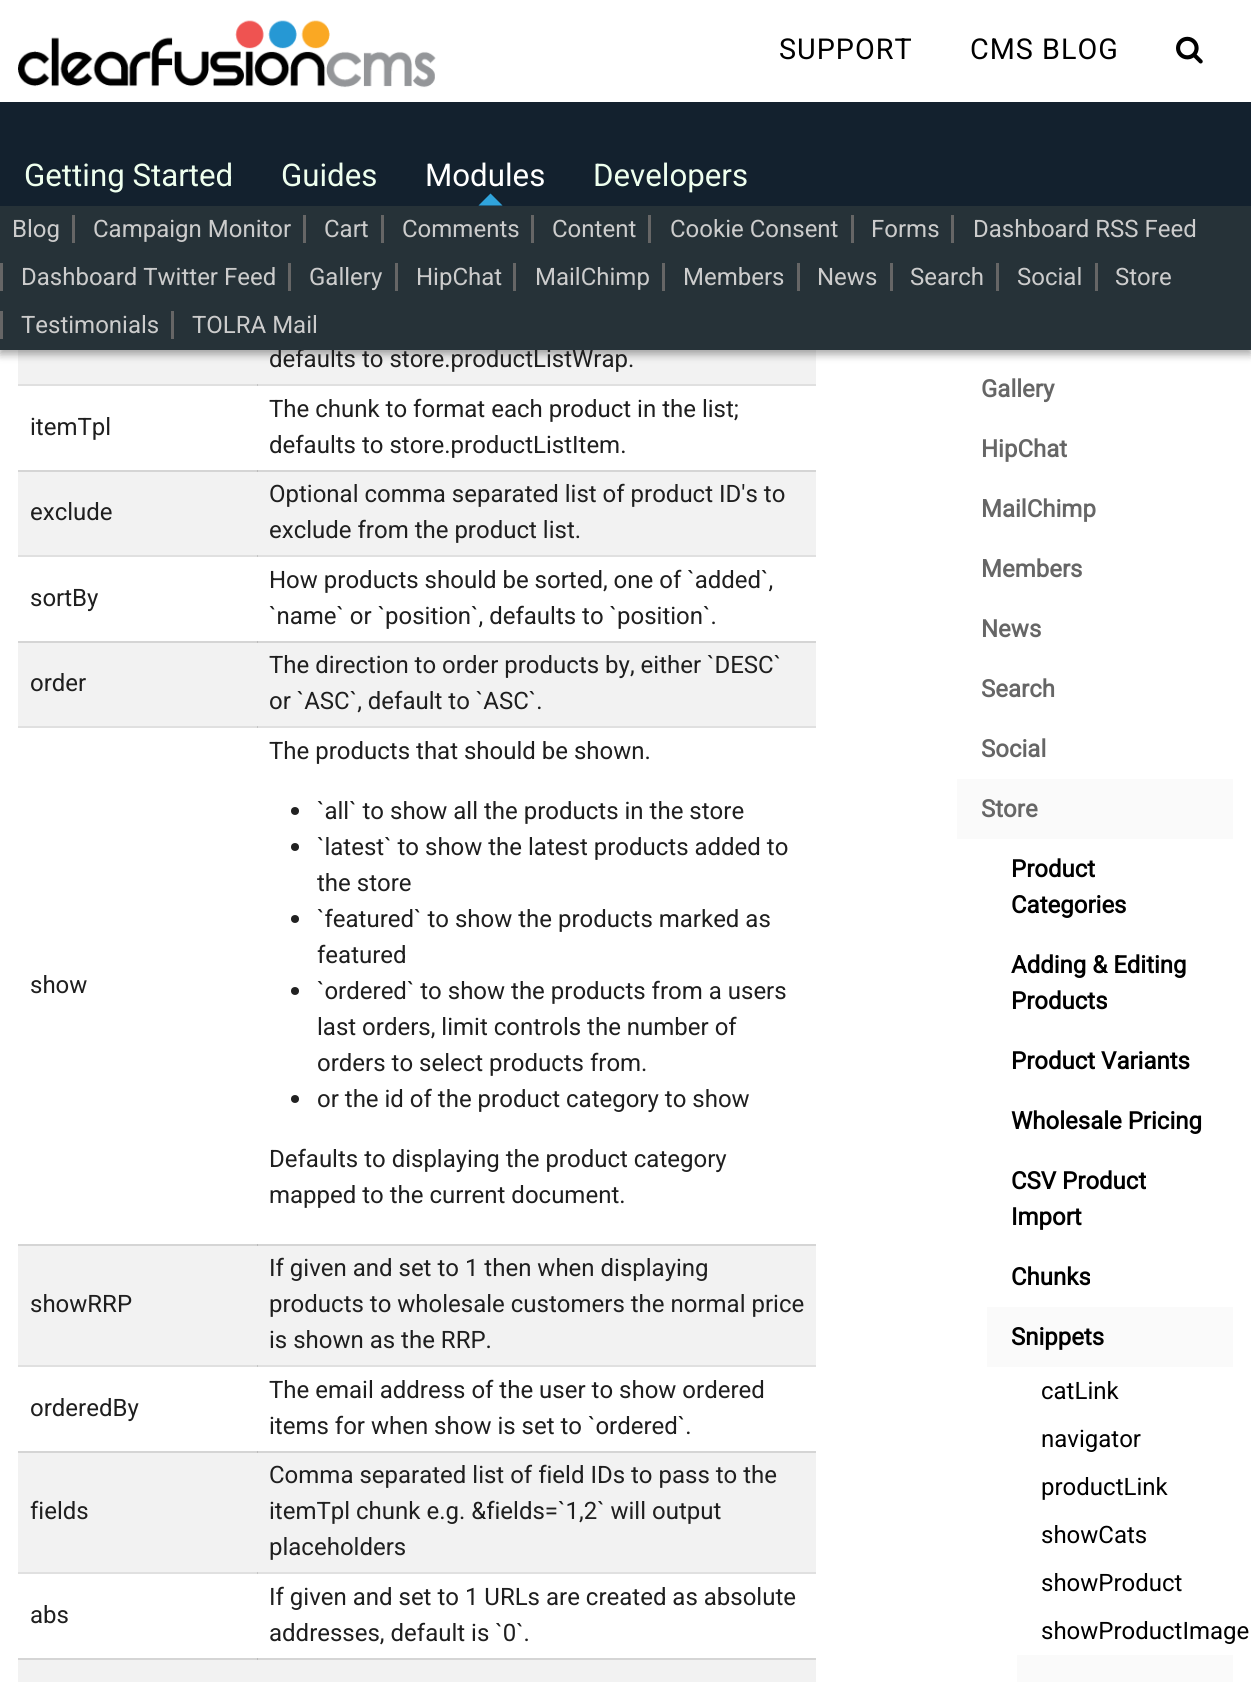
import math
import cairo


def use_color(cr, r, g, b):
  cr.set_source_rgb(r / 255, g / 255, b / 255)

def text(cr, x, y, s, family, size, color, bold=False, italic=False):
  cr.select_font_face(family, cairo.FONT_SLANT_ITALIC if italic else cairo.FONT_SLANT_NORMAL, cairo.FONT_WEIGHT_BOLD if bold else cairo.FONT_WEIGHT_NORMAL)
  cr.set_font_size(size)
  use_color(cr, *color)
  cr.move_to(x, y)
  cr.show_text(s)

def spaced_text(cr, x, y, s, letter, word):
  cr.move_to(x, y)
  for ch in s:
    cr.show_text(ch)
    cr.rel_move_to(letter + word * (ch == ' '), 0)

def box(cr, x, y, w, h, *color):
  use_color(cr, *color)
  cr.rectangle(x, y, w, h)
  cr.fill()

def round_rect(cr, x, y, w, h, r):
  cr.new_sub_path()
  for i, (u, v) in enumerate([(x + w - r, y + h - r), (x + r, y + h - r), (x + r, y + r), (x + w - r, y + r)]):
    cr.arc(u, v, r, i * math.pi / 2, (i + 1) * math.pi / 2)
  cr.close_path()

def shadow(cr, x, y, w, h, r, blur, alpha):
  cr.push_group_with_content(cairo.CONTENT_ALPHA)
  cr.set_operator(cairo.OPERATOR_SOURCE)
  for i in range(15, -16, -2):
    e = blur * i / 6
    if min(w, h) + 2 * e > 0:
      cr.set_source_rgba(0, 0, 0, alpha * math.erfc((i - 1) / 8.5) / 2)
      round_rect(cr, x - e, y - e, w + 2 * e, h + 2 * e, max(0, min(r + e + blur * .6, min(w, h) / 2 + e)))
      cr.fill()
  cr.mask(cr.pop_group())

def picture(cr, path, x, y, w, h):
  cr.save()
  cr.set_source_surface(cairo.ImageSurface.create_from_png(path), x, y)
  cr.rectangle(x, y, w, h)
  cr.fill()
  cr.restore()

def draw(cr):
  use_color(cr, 255, 255, 255)
  cr.paint()
  box(cr, 18, 384, 798, 2, 224, 224, 224)
  box(cr, 18, 555, 798, 2, 224, 224, 224)
  box(cr, 18, 726, 798, 2, 224, 224, 224)
  box(cr, 18, 1365, 798, 2, 224, 224, 224)
  box(cr, 18, 1572, 798, 2, 224, 224, 224)
  box(cr, 18, 350, 798, 34, 242, 242, 242)
  use_color(cr, 0, 0, 0)
  shadow(cr, 0, 5, 1251, 349, 0, 4.5, 0.23)
  shadow(cr, 0, 5, 1251, 349, 0, 4.5, 0.16)
  box(cr, 0, 0, 1251, 102, 255, 255, 255)
  picture(cr, "img_01.png", 18, 20, 418, 68)
  picture(cr, "img_02.png", 1176, 36, 27, 28)
  box(cr, 0, 102, 1251, 104, 19, 33, 46)
  use_color(cr, 48, 164, 220)
  cr.new_path()
  cr.move_to(502.5, 205.5)
  cr.line_to(478.5, 205.5)
  cr.line_to(490.5, 193.5)
  cr.close_path()
  cr.fill()
  box(cr, 257, 384, 1, 2, 197, 197, 197)
  box(cr, 18, 470, 798, 2, 213, 213, 213)
  box(cr, 257, 470, 1, 2, 187, 187, 187)
  box(cr, 18, 472, 798, 83, 242, 242, 242)
  box(cr, 257, 555, 1, 2, 197, 197, 197)
  box(cr, 18, 641, 798, 2, 213, 213, 213)
  box(cr, 257, 641, 1, 2, 187, 187, 187)
  box(cr, 18, 643, 798, 83, 242, 242, 242)
  box(cr, 257, 726, 1, 2, 197, 197, 197)
  box(cr, 18, 1244, 798, 2, 213, 213, 213)
  box(cr, 257, 1244, 1, 2, 187, 187, 187)
  use_color(cr, 33, 33, 33)
  cr.arc(295, 811, 4, 0, 2 * math.pi)
  cr.fill()
  cr.arc(295, 847, 4, 0, 2 * math.pi)
  cr.fill()
  cr.arc(295, 919, 4, 0, 2 * math.pi)
  cr.fill()
  cr.arc(295, 991, 4, 0, 2 * math.pi)
  cr.fill()
  cr.arc(295, 1099, 4, 0, 2 * math.pi)
  cr.fill()
  box(cr, 18, 1246, 798, 119, 242, 242, 242)
  box(cr, 257, 1365, 1, 2, 197, 197, 197)
  box(cr, 18, 1451, 798, 2, 213, 213, 213)
  box(cr, 257, 1451, 1, 2, 187, 187, 187)
  box(cr, 18, 1453, 798, 119, 242, 242, 242)
  box(cr, 257, 1572, 1, 2, 197, 197, 197)
  box(cr, 18, 1658, 798, 2, 213, 213, 213)
  box(cr, 257, 1658, 1, 2, 187, 187, 187)
  box(cr, 18, 1660, 798, 22, 242, 242, 242)
  box(cr, 957, 779, 276, 60, 250, 250, 250)
  box(cr, 987, 1307, 246, 60, 250, 250, 250)
  box(cr, 1017, 1655, 216, 27, 250, 250, 250)
  cr.select_font_face("Roboto")
  cr.set_font_size(28.75)
  use_color(cr, 0, 0, 0)
  spaced_text(cr, 779, 59, "SUPPORT", 1, 0)
  spaced_text(cr, 970, 59, "CMS BLOG", 1, 0)
  text(cr, 24, 186, "Getting Started", "Roboto", 31.25, (238, 255, 238))
  text(cr, 281, 186, "Guides", "Roboto", 31.25, (238, 255, 238))
  text(cr, 425, 186, "Modules", "Roboto", 31.25, (255, 255, 255))
  text(cr, 593, 186, "Developers", "Roboto", 31.25, (238, 255, 238))
  text(cr, 269, 367, "defaults to store.productListWrap.", "Roboto", 24, (31, 31, 31))
  box(cr, 0, 206, 1251, 144, 38, 50, 56)
  text(cr, 192, 333, "TOLRA Mail", "Roboto", 24, (204, 204, 204))
  box(cr, 171, 311, 3, 28, 102, 102, 102)
  text(cr, 21, 333, "Testimonials", "Roboto", 24, (204, 204, 204))
  box(cr, 0, 311, 3, 28, 102, 102, 102)
  text(cr, 1115, 285, "Store", "Roboto", 24, (204, 204, 204))
  box(cr, 1095, 263, 3, 28, 102, 102, 102)
  text(cr, 1017, 285, "Social", "Roboto", 24, (204, 204, 204))
  box(cr, 996, 263, 3, 28, 102, 102, 102)
  text(cr, 910, 285, "Search", "Roboto", 24, (204, 204, 204))
  box(cr, 890, 263, 3, 28, 102, 102, 102)
  text(cr, 817, 285, "News", "Roboto", 24, (204, 204, 204))
  box(cr, 797, 263, 3, 28, 102, 102, 102)
  text(cr, 683, 285, "Members", "Roboto", 24, (204, 204, 204))
  box(cr, 662, 263, 3, 28, 102, 102, 102)
  text(cr, 535, 285, "MailChimp", "Roboto", 24, (204, 204, 204))
  box(cr, 513, 263, 3, 28, 102, 102, 102)
  text(cr, 416, 285, "HipChat", "Roboto", 24, (204, 204, 204))
  box(cr, 395, 263, 3, 28, 102, 102, 102)
  text(cr, 309, 285, "Gallery", "Roboto", 24, (204, 204, 204))
  box(cr, 288, 263, 3, 28, 102, 102, 102)
  text(cr, 21, 285, "Dashboard Twitter Feed", "Roboto", 24, (204, 204, 204))
  box(cr, 0, 263, 3, 28, 102, 102, 102)
  text(cr, 973, 237, "Dashboard RSS Feed", "Roboto", 24, (204, 204, 204))
  box(cr, 951, 215, 3, 28, 102, 102, 102)
  text(cr, 871, 237, "Forms", "Roboto", 24, (204, 204, 204))
  box(cr, 851, 215, 3, 28, 102, 102, 102)
  text(cr, 670, 237, "Cookie Consent", "Roboto", 24, (204, 204, 204))
  box(cr, 648, 215, 3, 28, 102, 102, 102)
  text(cr, 552, 237, "Content", "Roboto", 24, (204, 204, 204))
  box(cr, 531, 215, 3, 28, 102, 102, 102)
  text(cr, 402, 237, "Comments", "Roboto", 24, (204, 204, 204))
  box(cr, 381, 215, 3, 28, 102, 102, 102)
  text(cr, 324, 237, "Cart", "Roboto", 24, (204, 204, 204))
  box(cr, 303, 215, 3, 28, 102, 102, 102)
  text(cr, 93, 237, "Campaign Monitor", "Roboto", 24, (204, 204, 204))
  box(cr, 72, 215, 3, 28, 102, 102, 102)
  text(cr, 12, 237, "Blog", "Roboto", 24, (204, 204, 204))
  text(cr, 30, 435, "itemTpl", "Roboto", 24, (31, 31, 31))
  text(cr, 269, 417, "The chunk to format each product in the list;", "Roboto", 24, (31, 31, 31))
  text(cr, 269, 453, "defaults to store.productListItem.", "Roboto", 24, (31, 31, 31))
  text(cr, 30, 520, "exclude", "Roboto", 24, (31, 31, 31))
  text(cr, 269, 502, "Optional comma separated list of product ID's to", "Roboto", 24, (31, 31, 31))
  text(cr, 269, 538, "exclude from the product list.", "Roboto", 24, (31, 31, 31))
  text(cr, 30, 606, "sortBy", "Roboto", 24, (31, 31, 31))
  text(cr, 269, 588, "How products should be sorted, one of `added`,", "Roboto", 24, (31, 31, 31))
  text(cr, 269, 624, "`name` or `position`, defaults to `position`.", "Roboto", 24, (31, 31, 31))
  text(cr, 30, 691, "order", "Roboto", 24, (31, 31, 31))
  text(cr, 269, 673, "The direction to order products by, either `DESC`", "Roboto", 24, (31, 31, 31))
  text(cr, 269, 709, "or `ASC`, default to `ASC`.", "Roboto", 24, (31, 31, 31))
  text(cr, 30, 993, "show", "Roboto", 24, (31, 31, 31))
  text(cr, 269, 759, "The products that should be shown.", "Roboto", 24, (31, 31, 31))
  text(cr, 317, 819, "`all` to show all the products in the store", "Roboto", 24, (31, 31, 31))
  text(cr, 317, 855, "`latest` to show the latest products added to", "Roboto", 24, (31, 31, 31))
  text(cr, 317, 891, "the store", "Roboto", 24, (31, 31, 31))
  text(cr, 317, 927, "`featured` to show the products marked as", "Roboto", 24, (31, 31, 31))
  text(cr, 317, 963, "featured", "Roboto", 24, (31, 31, 31))
  text(cr, 317, 999, "`ordered` to show the products from a users", "Roboto", 24, (31, 31, 31))
  text(cr, 317, 1035, "last orders, limit controls the number of", "Roboto", 24, (31, 31, 31))
  text(cr, 317, 1071, "orders to select products from.", "Roboto", 24, (31, 31, 31))
  text(cr, 317, 1107, "or the id of the product category to show", "Roboto", 24, (31, 31, 31))
  text(cr, 269, 1167, "Defaults to displaying the product category", "Roboto", 24, (31, 31, 31))
  text(cr, 269, 1203, "mapped to the current document.", "Roboto", 24, (31, 31, 31))
  text(cr, 30, 1312, "showRRP", "Roboto", 24, (31, 31, 31))
  text(cr, 269, 1276, "If given and set to 1 then when displaying", "Roboto", 24, (31, 31, 31))
  text(cr, 269, 1312, "products to wholesale customers the normal price", "Roboto", 24, (31, 31, 31))
  text(cr, 269, 1348, "is shown as the RRP.", "Roboto", 24, (31, 31, 31))
  text(cr, 30, 1416, "orderedBy", "Roboto", 24, (31, 31, 31))
  text(cr, 269, 1398, "The email address of the user to show ordered", "Roboto", 24, (31, 31, 31))
  text(cr, 269, 1434, "items for when show is set to `ordered`.", "Roboto", 24, (31, 31, 31))
  text(cr, 30, 1519, "fields", "Roboto", 24, (31, 31, 31))
  text(cr, 269, 1483, "Comma separated list of field IDs to pass to the", "Roboto", 24, (31, 31, 31))
  text(cr, 269, 1519, "itemTpl chunk e.g. &fields=`1,2` will output", "Roboto", 24, (31, 31, 31))
  text(cr, 269, 1555, "placeholders", "Roboto", 24, (31, 31, 31))
  text(cr, 30, 1623, "abs", "Roboto", 24, (31, 31, 31))
  text(cr, 269, 1605, "If given and set to 1 URLs are created as absolute", "Roboto", 24, (31, 31, 31))
  text(cr, 269, 1641, "addresses, default is `0`.", "Roboto", 24, (31, 31, 31))
  text(cr, 981, 397, "Gallery", "Roboto", 24, (102, 102, 102), bold=True)
  text(cr, 981, 457, "HipChat", "Roboto", 24, (102, 102, 102), bold=True)
  text(cr, 981, 517, "MailChimp", "Roboto", 24, (102, 102, 102), bold=True)
  text(cr, 981, 577, "Members", "Roboto", 24, (102, 102, 102), bold=True)
  text(cr, 981, 637, "News", "Roboto", 24, (102, 102, 102), bold=True)
  text(cr, 981, 697, "Search", "Roboto", 24, (102, 102, 102), bold=True)
  text(cr, 981, 757, "Social", "Roboto", 24, (102, 102, 102), bold=True)
  text(cr, 981, 817, "Store", "Roboto", 24, (102, 102, 102), bold=True)
  text(cr, 1011, 877, "Product", "Roboto", 24, (0, 0, 0), bold=True)
  text(cr, 1011, 913, "Categories", "Roboto", 24, (0, 0, 0), bold=True)
  text(cr, 1011, 973, "Adding & Editing", "Roboto", 24, (0, 0, 0), bold=True)
  text(cr, 1011, 1009, "Products", "Roboto", 24, (0, 0, 0), bold=True)
  text(cr, 1011, 1069, "Product Variants", "Roboto", 24, (0, 0, 0), bold=True)
  text(cr, 1011, 1129, "Wholesale Pricing", "Roboto", 24, (0, 0, 0), bold=True)
  text(cr, 1011, 1189, "CSV Product", "Roboto", 24, (0, 0, 0), bold=True)
  text(cr, 1011, 1225, "Import", "Roboto", 24, (0, 0, 0), bold=True)
  text(cr, 1011, 1285, "Chunks", "Roboto", 24, (0, 0, 0), bold=True)
  text(cr, 1011, 1345, "Snippets", "Roboto", 24, (0, 0, 0), bold=True)
  text(cr, 1041, 1399, "catLink", "Roboto", 24, (0, 0, 0))
  text(cr, 1041, 1447, "navigator", "Roboto", 24, (0, 0, 0))
  text(cr, 1041, 1495, "productLink", "Roboto", 24, (0, 0, 0))
  text(cr, 1041, 1543, "showCats", "Roboto", 24, (0, 0, 0))
  text(cr, 1041, 1591, "showProduct", "Roboto", 24, (0, 0, 0))
  text(cr, 1041, 1639, "showProductImage", "Roboto", 24, (0, 0, 0))


surface = cairo.ImageSurface(cairo.FORMAT_RGB24, 1251, 1682)
cr = cairo.Context(surface)
options = cairo.FontOptions()
options.set_hint_metrics(cairo.HINT_METRICS_OFF)
options.set_hint_style(cairo.HINT_STYLE_NONE)
cr.set_font_options(options)
cr.set_miter_limit(4)
draw(cr)
surface.write_to_png("out.png")
